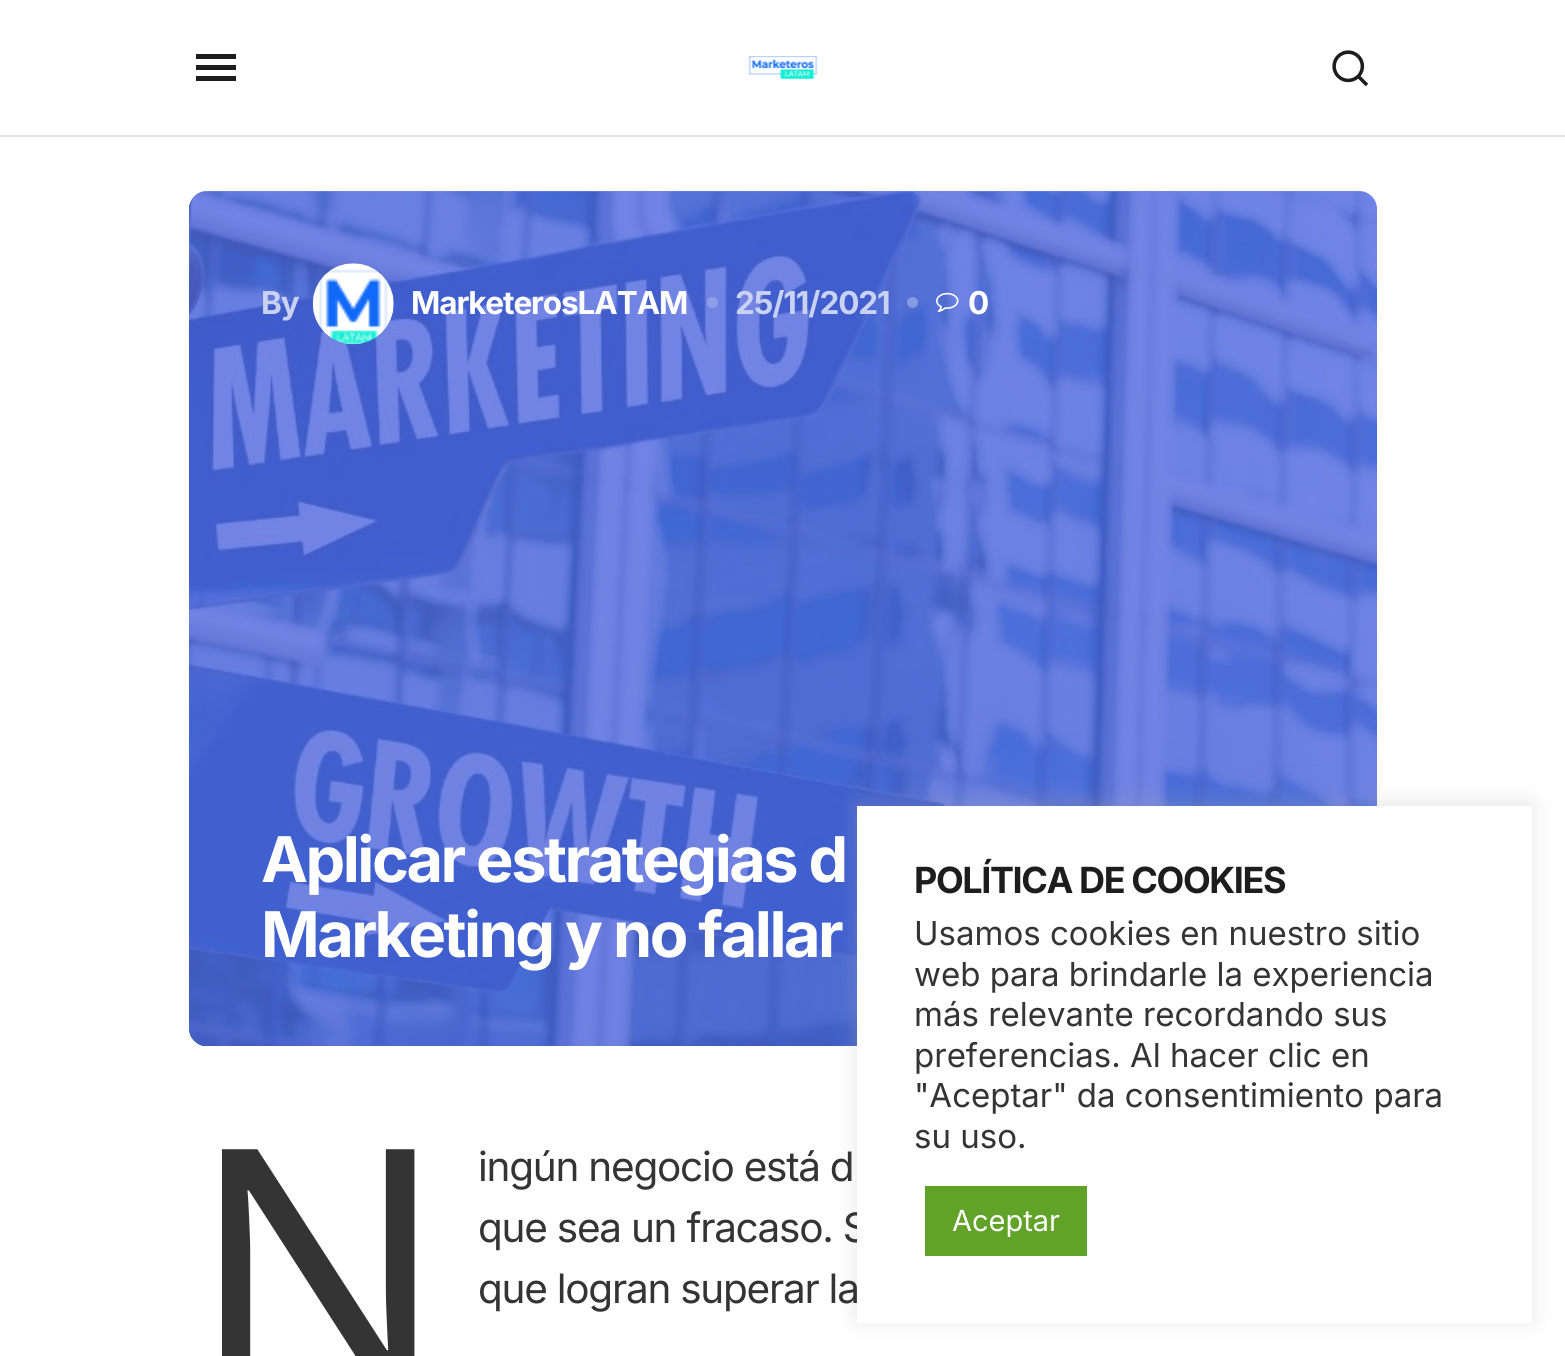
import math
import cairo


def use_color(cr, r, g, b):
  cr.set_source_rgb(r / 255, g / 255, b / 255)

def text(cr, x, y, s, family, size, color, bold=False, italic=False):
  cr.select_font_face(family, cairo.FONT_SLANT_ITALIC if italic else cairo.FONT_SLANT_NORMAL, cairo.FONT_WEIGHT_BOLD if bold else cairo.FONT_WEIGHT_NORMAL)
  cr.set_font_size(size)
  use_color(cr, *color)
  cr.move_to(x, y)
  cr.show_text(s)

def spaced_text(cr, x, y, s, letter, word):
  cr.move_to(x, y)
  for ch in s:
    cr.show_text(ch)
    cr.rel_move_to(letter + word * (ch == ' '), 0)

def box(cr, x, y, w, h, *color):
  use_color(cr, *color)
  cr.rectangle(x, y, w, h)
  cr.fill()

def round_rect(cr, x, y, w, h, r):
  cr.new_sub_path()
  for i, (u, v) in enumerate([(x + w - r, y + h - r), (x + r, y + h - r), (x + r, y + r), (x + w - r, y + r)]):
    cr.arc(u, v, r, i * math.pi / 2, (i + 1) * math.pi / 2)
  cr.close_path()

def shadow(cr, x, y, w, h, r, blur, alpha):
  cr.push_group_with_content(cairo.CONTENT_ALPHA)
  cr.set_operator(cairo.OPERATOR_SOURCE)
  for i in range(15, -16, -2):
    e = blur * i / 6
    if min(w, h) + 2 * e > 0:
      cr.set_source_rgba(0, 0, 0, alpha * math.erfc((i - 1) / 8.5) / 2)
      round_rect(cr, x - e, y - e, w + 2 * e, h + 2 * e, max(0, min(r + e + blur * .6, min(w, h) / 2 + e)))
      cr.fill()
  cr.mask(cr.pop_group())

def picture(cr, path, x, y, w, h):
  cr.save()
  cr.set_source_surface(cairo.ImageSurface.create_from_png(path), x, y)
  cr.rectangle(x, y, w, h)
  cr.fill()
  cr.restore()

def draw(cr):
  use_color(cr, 255, 255, 255)
  cr.paint()
  use_color(cr, 29, 29, 29)
  cr.new_path()
  cr.move_to(196, 54)
  cr.line_to(236, 54)
  cr.line_to(236, 59)
  cr.line_to(196, 59)
  cr.close_path()
  cr.move_to(196, 70)
  cr.line_to(196, 65)
  cr.line_to(236, 65)
  cr.line_to(236, 70)
  cr.close_path()
  cr.move_to(196, 81)
  cr.line_to(196, 76)
  cr.line_to(236, 76)
  cr.line_to(236, 81)
  cr.close_path()
  cr.fill()
  picture(cr, "img_01.png", 748, 56, 70, 23)
  picture(cr, "img_02.png", 1332, 50, 37, 37)
  box(cr, 0, 135, 1565, 2, 228, 228, 228)
  picture(cr, "img_03.png", 189, 191, 1188, 855)
  cr.set_source_rgba(0.314, 0.408, 0.878, 0.8)
  round_rect(cr, 189, 191, 1188, 855, 18)
  cr.fill()
  picture(cr, "img_04.png", 312, 263, 82, 82)
  cr.set_source_rgba(1, 1, 1, 0.21)
  cr.arc(712.5, 302.5, 5.5, 0, 2 * math.pi)
  cr.fill()
  cr.set_source_rgba(1, 1, 1, 0.3)
  cr.arc(912.5, 302.5, 5.5, 0, 2 * math.pi)
  cr.fill()
  picture(cr, "img_05.png", 936, 292, 23, 21)
  use_color(cr, 172, 171, 171)
  shadow(cr, 857, 803, 675, 518, 0, 11, 0.3)
  cr.select_font_face("Inter", cairo.FONT_SLANT_NORMAL, cairo.FONT_WEIGHT_BOLD)
  cr.set_font_size(31.5)
  use_color(cr, 202, 210, 242)
  spaced_text(cr, 261, 314, "By", -1.1, 0)
  use_color(cr, 255, 255, 255)
  spaced_text(cr, 411, 314, "MarketerosLATAM", -1.1, 0)
  use_color(cr, 202, 210, 242)
  spaced_text(cr, 735, 314, "25/11/2021", -1.1, 0)
  use_color(cr, 255, 255, 255)
  spaced_text(cr, 968, 314, "0", -1.1, 0)
  cr.set_font_size(63)
  spaced_text(cr, 261, 882, "Aplicar estrategias d", -2.5, 0)
  spaced_text(cr, 261, 957, "Marketing y no fallar", -2.5, 0)
  cr.select_font_face("Noto Sans")
  cr.set_font_size(340)
  use_color(cr, 52, 52, 52)
  spaced_text(cr, 189, 1392, "N", -1.25, 0)
  cr.select_font_face("Inter")
  cr.set_font_size(40.5)
  spaced_text(cr, 478, 1181, "ingún negocio está d", -1.25, 0)
  spaced_text(cr, 478, 1242, "que sea un fracaso. S", -1.25, 0)
  spaced_text(cr, 478, 1303, "que logran superar la", -1.25, 0)
  box(cr, 857, 806, 675, 517, 255, 255, 255)
  cr.select_font_face("Inter", cairo.FONT_SLANT_NORMAL, cairo.FONT_WEIGHT_BOLD)
  cr.set_font_size(36)
  use_color(cr, 29, 29, 29)
  spaced_text(cr, 914, 893, "POLÍTICA DE COOKIES", -1.4, 0)
  text(cr, 914, 945, "Usamos cookies en nuestro sitio", "Inter", 33, (52, 52, 52))
  text(cr, 914, 986, "web para brindarle la experiencia", "Inter", 33, (52, 52, 52))
  text(cr, 914, 1026, "más relevante recordando sus", "Inter", 33, (52, 52, 52))
  text(cr, 914, 1067, "preferencias. Al hacer clic en", "Inter", 33, (52, 52, 52))
  text(cr, 914, 1107, "\"Aceptar\" da consentimiento para", "Inter", 33, (52, 52, 52))
  text(cr, 914, 1148, "su uso.", "Inter", 33, (52, 52, 52))
  box(cr, 925, 1186, 162, 70, 97, 162, 41)
  text(cr, 952, 1231, "Aceptar", "Inter", 29, (255, 255, 255))


surface = cairo.ImageSurface(cairo.FORMAT_RGB24, 1565, 1356)
cr = cairo.Context(surface)
options = cairo.FontOptions()
options.set_hint_metrics(cairo.HINT_METRICS_OFF)
options.set_hint_style(cairo.HINT_STYLE_NONE)
cr.set_font_options(options)
cr.set_miter_limit(4)
draw(cr)
surface.write_to_png("out.png")
